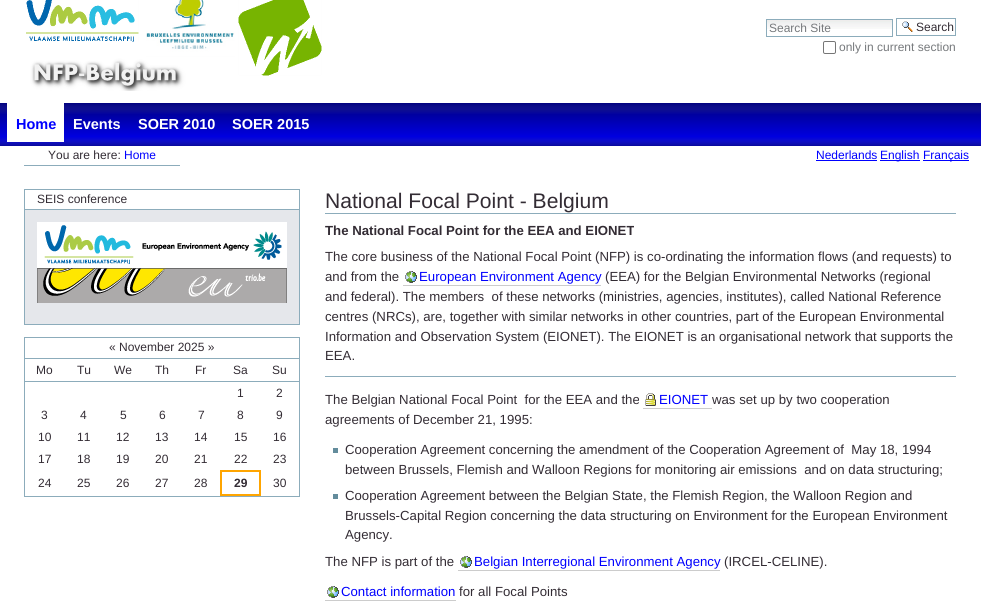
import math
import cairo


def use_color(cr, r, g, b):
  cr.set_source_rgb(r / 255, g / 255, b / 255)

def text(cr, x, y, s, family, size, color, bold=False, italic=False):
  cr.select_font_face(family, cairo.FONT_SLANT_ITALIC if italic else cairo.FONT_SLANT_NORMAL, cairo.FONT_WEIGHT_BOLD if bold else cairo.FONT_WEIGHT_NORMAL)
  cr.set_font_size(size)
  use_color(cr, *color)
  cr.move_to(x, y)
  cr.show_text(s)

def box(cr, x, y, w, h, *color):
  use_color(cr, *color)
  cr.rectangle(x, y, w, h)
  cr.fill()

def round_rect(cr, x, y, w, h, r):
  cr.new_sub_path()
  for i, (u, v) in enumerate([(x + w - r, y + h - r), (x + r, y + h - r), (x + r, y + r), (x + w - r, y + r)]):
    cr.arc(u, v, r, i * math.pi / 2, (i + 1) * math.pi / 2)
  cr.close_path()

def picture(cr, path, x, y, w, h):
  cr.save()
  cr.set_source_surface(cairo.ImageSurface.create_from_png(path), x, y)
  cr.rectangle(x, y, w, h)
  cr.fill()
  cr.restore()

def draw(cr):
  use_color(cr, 255, 255, 255)
  cr.paint()
  picture(cr, "img_01.png", 26, 0, 296, 91)
  picture(cr, "img_02.png", 767, 20, 125, 9)
  cr.rectangle(766.5, 19.5, 126, 17)
  use_color(cr, 140, 172, 187)
  cr.set_line_width(1)
  cr.stroke()
  picture(cr, "img_03.png", 902, 21, 11, 11)
  cr.rectangle(896.5, 18.5, 59, 17)
  cr.stroke()
  round_rect(cr, 823.5, 41.5, 12, 12, 1.5)
  use_color(cr, 118, 118, 118)
  cr.stroke()
  picture(cr, "img_04.png", 0, 103, 981, 43)
  box(cr, 7, 103, 57, 39, 255, 255, 255)
  box(cr, 24, 165, 156, 1, 140, 172, 187)
  box(cr, 816, 160, 61, 1, 0, 0, 255)
  box(cr, 880, 160, 40, 1, 0, 0, 255)
  box(cr, 923, 160, 46, 1, 0, 0, 255)
  box(cr, 24, 324, 276, 1, 140, 172, 187)
  cr.rectangle(24.5, 189.5, 275, 20)
  cr.stroke()
  box(cr, 25, 210, 274, 114, 229, 231, 235)
  box(cr, 299, 210, 1, 114, 140, 172, 187)
  box(cr, 24, 210, 1, 114, 140, 172, 187)
  picture(cr, "img_05.png", 37, 222, 250, 81)
  box(cr, 24, 496, 276, 1, 140, 172, 187)
  box(cr, 24, 337, 276, 1, 140, 172, 187)
  box(cr, 299, 337, 1, 159, 140, 172, 187)
  box(cr, 24, 337, 1, 159, 140, 172, 187)
  box(cr, 25, 358, 275, 1, 140, 172, 187)
  box(cr, 25, 381, 275, 1, 140, 172, 187)
  box(cr, 220, 470, 41, 2, 255, 165, 0)
  box(cr, 259, 470, 2, 26, 255, 165, 0)
  box(cr, 220, 494, 41, 2, 255, 165, 0)
  box(cr, 220, 470, 2, 26, 255, 165, 0)
  box(cr, 325, 213, 631, 1, 140, 172, 187)
  picture(cr, "img_06.png", 405, 271, 12, 12)
  box(cr, 403, 285, 198, 1, 204, 204, 204)
  box(cr, 325, 376, 631, 1, 140, 172, 187)
  picture(cr, "img_07.png", 645, 393, 11, 13)
  box(cr, 643, 408, 69, 1, 204, 204, 204)
  box(cr, 333, 448, 5, 5, 99, 140, 156)
  box(cr, 333, 494, 5, 5, 99, 140, 156)
  picture(cr, "img_06.png", 460, 556, 12, 12)
  box(cr, 458, 570, 262, 1, 204, 204, 204)
  picture(cr, "img_06.png", 327, 586, 12, 12)
  box(cr, 325, 600, 131, 1, 204, 204, 204)
  text(cr, 769, 32, "Search Site", "Liberation Sans", 12, (118, 121, 124))
  text(cr, 916, 31, "Search", "Liberation Sans", 12, (51, 44, 52))
  text(cr, 839, 51, "only in current section", "Liberation Sans", 12, (118, 121, 124))
  text(cr, 16, 129, "Home", "Liberation Sans", 14.5, (0, 0, 255), bold=True)
  text(cr, 73, 129, "Events", "Liberation Sans", 14.5, (255, 255, 255), bold=True)
  text(cr, 138, 129, "SOER 2010", "Liberation Sans", 14.5, (255, 255, 255), bold=True)
  text(cr, 232, 129, "SOER 2015", "Liberation Sans", 14.5, (255, 255, 255), bold=True)
  text(cr, 48, 159, "You are here:", "Liberation Sans", 12, (51, 44, 52))
  text(cr, 124, 159, "Home", "Liberation Sans", 12, (0, 0, 255))
  text(cr, 816, 159, "Nederlands", "Liberation Sans", 12, (0, 0, 255))
  text(cr, 880, 159, "English", "Liberation Sans", 12, (0, 0, 255))
  text(cr, 923, 159, "Français", "Liberation Sans", 12, (0, 0, 255))
  text(cr, 37, 203, "SEIS conference", "Liberation Sans", 12, (51, 44, 52))
  text(cr, 109, 351, "« November 2025 »", "Liberation Sans", 12, (51, 44, 52))
  text(cr, 36, 374, "Mo", "Liberation Sans", 12, (51, 44, 52))
  text(cr, 77, 374, "Tu", "Liberation Sans", 12, (51, 44, 52))
  text(cr, 114, 374, "We", "Liberation Sans", 12, (51, 44, 52))
  text(cr, 155, 374, "Th", "Liberation Sans", 12, (51, 44, 52))
  text(cr, 195, 374, "Fr", "Liberation Sans", 12, (51, 44, 52))
  text(cr, 233, 374, "Sa", "Liberation Sans", 12, (51, 44, 52))
  text(cr, 272, 374, "Su", "Liberation Sans", 12, (51, 44, 52))
  text(cr, 237, 397, "1", "Liberation Sans", 12, (51, 44, 52))
  text(cr, 276, 397, "2", "Liberation Sans", 12, (51, 44, 52))
  text(cr, 41, 419, "3", "Liberation Sans", 12, (51, 44, 52))
  text(cr, 80, 419, "4", "Liberation Sans", 12, (51, 44, 52))
  text(cr, 120, 419, "5", "Liberation Sans", 12, (51, 44, 52))
  text(cr, 159, 419, "6", "Liberation Sans", 12, (51, 44, 52))
  text(cr, 198, 419, "7", "Liberation Sans", 12, (51, 44, 52))
  text(cr, 237, 419, "8", "Liberation Sans", 12, (51, 44, 52))
  text(cr, 276, 419, "9", "Liberation Sans", 12, (51, 44, 52))
  text(cr, 38, 441, "10", "Liberation Sans", 12, (51, 44, 52))
  text(cr, 77, 441, "11", "Liberation Sans", 12, (51, 44, 52))
  text(cr, 116, 441, "12", "Liberation Sans", 12, (51, 44, 52))
  text(cr, 155, 441, "13", "Liberation Sans", 12, (51, 44, 52))
  text(cr, 194, 441, "14", "Liberation Sans", 12, (51, 44, 52))
  text(cr, 234, 441, "15", "Liberation Sans", 12, (51, 44, 52))
  text(cr, 273, 441, "16", "Liberation Sans", 12, (51, 44, 52))
  text(cr, 38, 463, "17", "Liberation Sans", 12, (51, 44, 52))
  text(cr, 77, 463, "18", "Liberation Sans", 12, (51, 44, 52))
  text(cr, 116, 463, "19", "Liberation Sans", 12, (51, 44, 52))
  text(cr, 155, 463, "20", "Liberation Sans", 12, (51, 44, 52))
  text(cr, 194, 463, "21", "Liberation Sans", 12, (51, 44, 52))
  text(cr, 234, 463, "22", "Liberation Sans", 12, (51, 44, 52))
  text(cr, 273, 463, "23", "Liberation Sans", 12, (51, 44, 52))
  text(cr, 38, 487, "24", "Liberation Sans", 12, (51, 44, 52))
  text(cr, 77, 487, "25", "Liberation Sans", 12, (51, 44, 52))
  text(cr, 116, 487, "26", "Liberation Sans", 12, (51, 44, 52))
  text(cr, 155, 487, "27", "Liberation Sans", 12, (51, 44, 52))
  text(cr, 194, 487, "28", "Liberation Sans", 12, (51, 44, 52))
  text(cr, 234, 487, "29", "Liberation Sans", 12, (51, 44, 52), bold=True)
  text(cr, 273, 487, "30", "Liberation Sans", 12, (51, 44, 52))
  text(cr, 325, 208, "National Focal Point - Belgium", "Liberation Sans", 21.1, (51, 44, 52))
  text(cr, 325, 235, "The National Focal Point for the EEA and EIONET", "Liberation Sans", 13.2, (51, 44, 52), bold=True)
  text(cr, 325, 261, "The core business of the National Focal Point (NFP) is co-ordinating the information flows (and requests) to", "Liberation Sans", 13.2, (51, 44, 52))
  text(cr, 325, 281, "and from the", "Liberation Sans", 13.2, (51, 44, 52))
  text(cr, 419, 281, "European Environment Agency", "Liberation Sans", 13.2, (0, 0, 255))
  text(cr, 605, 281, "(EEA) for the Belgian Environmental Networks (regional", "Liberation Sans", 13.2, (51, 44, 52))
  text(cr, 325, 301, "and federal). The members  of these networks (ministries, agencies, institutes), called National Reference", "Liberation Sans", 13.2, (51, 44, 52))
  text(cr, 325, 321, "centres (NRCs), are, together with similar networks in other countries, part of the European Environmental", "Liberation Sans", 13.2, (51, 44, 52))
  text(cr, 325, 341, "Information and Observation System (EIONET). The EIONET is an organisational network that supports the", "Liberation Sans", 13.2, (51, 44, 52))
  text(cr, 325, 360, "EEA.", "Liberation Sans", 13.2, (51, 44, 52))
  text(cr, 325, 404, "The Belgian National Focal Point  for the EEA and the", "Liberation Sans", 13.2, (51, 44, 52))
  text(cr, 659, 404, "EIONET", "Liberation Sans", 13.2, (0, 0, 255))
  text(cr, 712, 404, "was set up by two cooperation", "Liberation Sans", 13.2, (51, 44, 52))
  text(cr, 325, 424, "agreements of December 21, 1995:", "Liberation Sans", 13.2, (51, 44, 52))
  text(cr, 345, 454, "Cooperation Agreement concerning the amendment of the Cooperation Agreement of  May 18, 1994", "Liberation Sans", 13.2, (51, 44, 52))
  text(cr, 345, 474, "between Brussels, Flemish and Walloon Regions for monitoring air emissions  and on data structuring;", "Liberation Sans", 13.2, (51, 44, 52))
  text(cr, 345, 500, "Cooperation Agreement between the Belgian State, the Flemish Region, the Walloon Region and", "Liberation Sans", 13.2, (51, 44, 52))
  text(cr, 345, 520, "Brussels-Capital Region concerning the data structuring on Environment for the European Environment", "Liberation Sans", 13.2, (51, 44, 52))
  text(cr, 345, 539, "Agency.", "Liberation Sans", 13.2, (51, 44, 52))
  text(cr, 325, 566, "The NFP is part of the", "Liberation Sans", 13.2, (51, 44, 52))
  text(cr, 474, 566, "Belgian Interregional Environment Agency", "Liberation Sans", 13.2, (0, 0, 255))
  text(cr, 724, 566, "(IRCEL-CELINE).", "Liberation Sans", 13.2, (51, 44, 52))
  text(cr, 341, 596, "Contact information", "Liberation Sans", 13.2, (0, 0, 255))
  text(cr, 459, 596, "for all Focal Points", "Liberation Sans", 13.2, (51, 44, 52))


surface = cairo.ImageSurface(cairo.FORMAT_RGB24, 981, 607)
cr = cairo.Context(surface)
options = cairo.FontOptions()
options.set_hint_metrics(cairo.HINT_METRICS_OFF)
options.set_hint_style(cairo.HINT_STYLE_NONE)
cr.set_font_options(options)
cr.set_miter_limit(4)
draw(cr)
surface.write_to_png("out.png")
